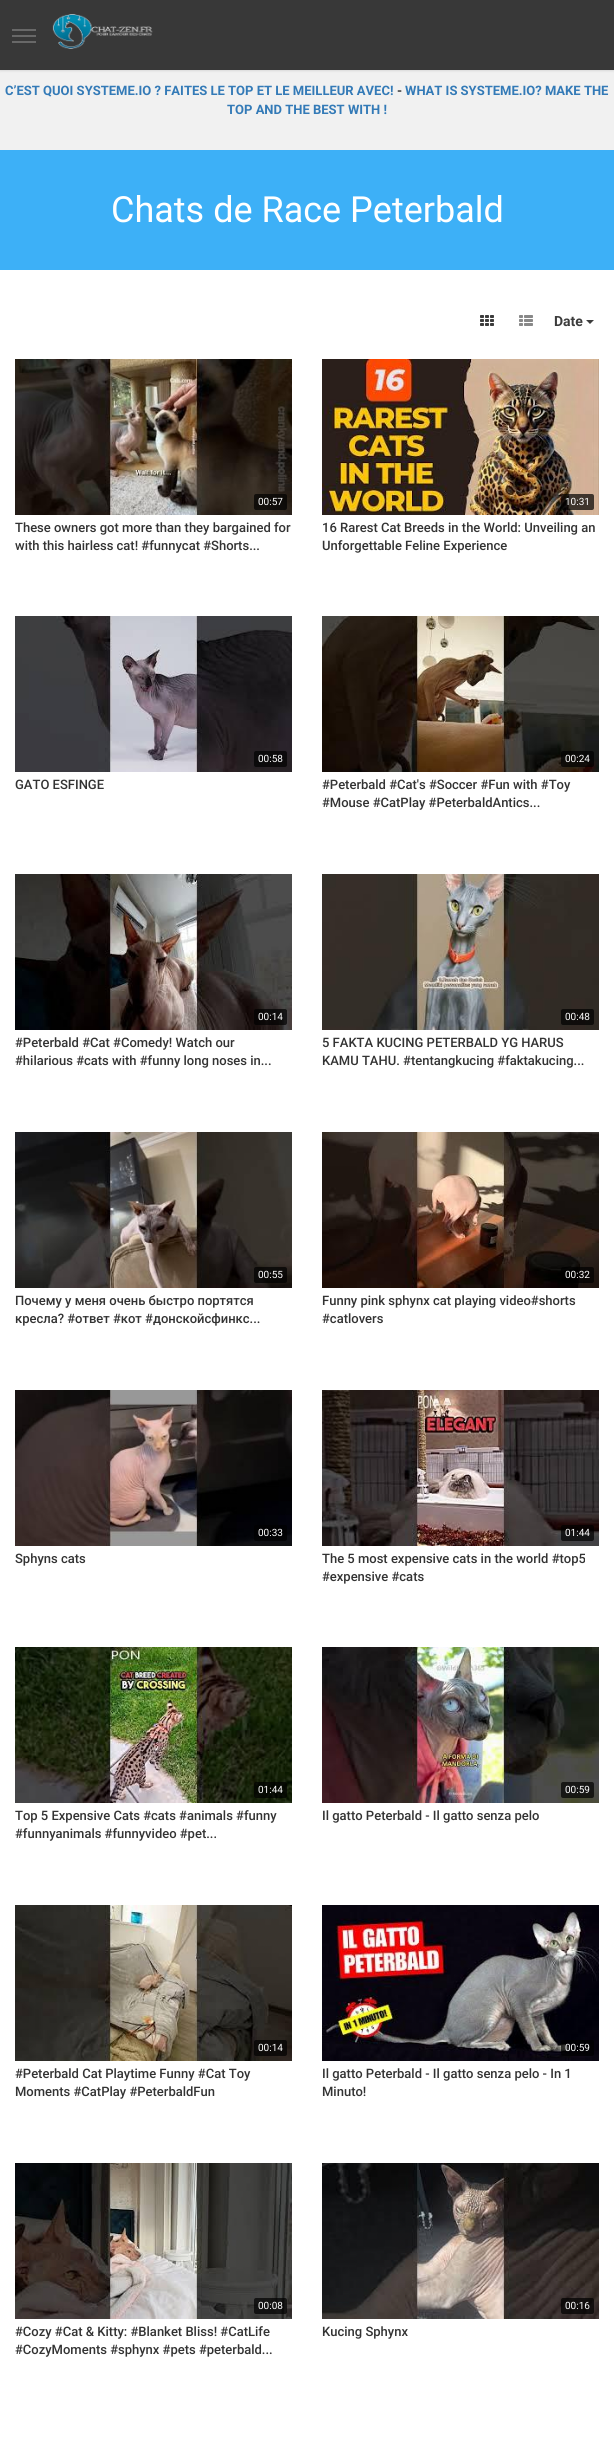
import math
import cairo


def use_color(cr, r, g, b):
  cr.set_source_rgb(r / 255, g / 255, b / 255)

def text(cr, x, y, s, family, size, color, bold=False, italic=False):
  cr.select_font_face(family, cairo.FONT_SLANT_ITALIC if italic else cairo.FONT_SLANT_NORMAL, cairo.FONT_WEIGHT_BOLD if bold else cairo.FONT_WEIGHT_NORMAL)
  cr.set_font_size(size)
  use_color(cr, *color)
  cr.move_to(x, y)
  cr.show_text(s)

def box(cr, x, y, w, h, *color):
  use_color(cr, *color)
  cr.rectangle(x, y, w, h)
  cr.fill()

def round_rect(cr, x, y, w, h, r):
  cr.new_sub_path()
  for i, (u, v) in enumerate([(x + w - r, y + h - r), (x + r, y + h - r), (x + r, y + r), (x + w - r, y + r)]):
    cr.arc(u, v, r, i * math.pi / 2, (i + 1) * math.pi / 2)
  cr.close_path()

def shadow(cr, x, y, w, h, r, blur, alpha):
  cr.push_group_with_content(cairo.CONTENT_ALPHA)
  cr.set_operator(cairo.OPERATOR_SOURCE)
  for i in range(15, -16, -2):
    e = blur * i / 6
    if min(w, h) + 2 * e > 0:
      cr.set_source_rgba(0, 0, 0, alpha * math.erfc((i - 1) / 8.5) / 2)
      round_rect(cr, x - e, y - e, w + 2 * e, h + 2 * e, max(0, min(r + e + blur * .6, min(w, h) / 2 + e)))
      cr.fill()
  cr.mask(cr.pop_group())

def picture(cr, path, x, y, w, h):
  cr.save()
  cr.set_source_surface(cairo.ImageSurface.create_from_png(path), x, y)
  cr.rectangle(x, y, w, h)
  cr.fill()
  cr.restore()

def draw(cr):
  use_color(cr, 241, 241, 241)
  cr.paint()
  use_color(cr, 0, 0, 0)
  shadow(cr, 0, 1, 614, 70, 0, 1, 0.1)
  box(cr, 0, 0, 614, 70, 56, 56, 56)
  box(cr, 12, 35, 24, 2, 104, 104, 104)
  box(cr, 12, 29, 24, 2, 104, 104, 104)
  box(cr, 12, 41, 24, 2, 104, 104, 104)
  picture(cr, "img_01.png", 52, 14, 101, 35)
  box(cr, 0, 150, 614, 120, 61, 176, 247)
  box(cr, 0, 270, 614, 2168, 255, 255, 255)
  picture(cr, "img_02.png", 480, 315, 14, 11)
  picture(cr, "img_03.png", 519, 315, 14, 11)
  use_color(cr, 60, 60, 60)
  cr.new_path()
  cr.move_to(586, 320)
  cr.line_to(594, 320)
  cr.line_to(590, 324)
  cr.close_path()
  cr.fill()
  picture(cr, "img_04.png", 15, 359, 277, 156)
  cr.set_source_rgba(0, 0, 0, 0.7)
  round_rect(cr, 254, 494, 33, 16, 2)
  cr.fill()
  picture(cr, "img_05.png", 322, 359, 277, 156)
  round_rect(cr, 561, 494, 33, 16, 2)
  cr.fill()
  picture(cr, "img_06.png", 15, 616, 277, 156)
  round_rect(cr, 254, 751, 33, 16, 2)
  cr.fill()
  picture(cr, "img_07.png", 322, 616, 277, 156)
  round_rect(cr, 561, 751, 33, 16, 2)
  cr.fill()
  picture(cr, "img_08.png", 15, 874, 277, 156)
  round_rect(cr, 254, 1009, 33, 16, 2)
  cr.fill()
  picture(cr, "img_09.png", 322, 874, 277, 156)
  round_rect(cr, 561, 1009, 33, 16, 2)
  cr.fill()
  picture(cr, "img_10.png", 15, 1132, 277, 156)
  round_rect(cr, 254, 1267, 33, 16, 2)
  cr.fill()
  picture(cr, "img_11.png", 322, 1132, 277, 156)
  round_rect(cr, 561, 1267, 33, 16, 2)
  cr.fill()
  picture(cr, "img_12.png", 15, 1390, 277, 156)
  round_rect(cr, 254, 1525, 33, 16, 2)
  cr.fill()
  picture(cr, "img_13.png", 322, 1390, 277, 156)
  round_rect(cr, 561, 1525, 33, 16, 2)
  cr.fill()
  picture(cr, "img_14.png", 15, 1647, 277, 156)
  round_rect(cr, 254, 1782, 33, 16, 2)
  cr.fill()
  picture(cr, "img_15.png", 322, 1647, 277, 156)
  round_rect(cr, 561, 1782, 33, 16, 2)
  cr.fill()
  picture(cr, "img_16.png", 15, 1905, 277, 156)
  round_rect(cr, 254, 2040, 33, 16, 2)
  cr.fill()
  picture(cr, "img_17.png", 322, 1905, 277, 156)
  round_rect(cr, 561, 2040, 33, 16, 2)
  cr.fill()
  picture(cr, "img_18.png", 15, 2163, 277, 156)
  round_rect(cr, 254, 2298, 33, 16, 2)
  cr.fill()
  picture(cr, "img_19.png", 322, 2163, 277, 156)
  round_rect(cr, 561, 2298, 33, 16, 2)
  cr.fill()
  text(cr, 5, 95, "C’EST QUOI SYSTEME.IO ? FAITES LE TOP ET LE MEILLEUR AVEC!", "Roboto", 13, (51, 122, 183), bold=True)
  text(cr, 397, 95, "-", "Roboto", 13, (51, 51, 51), bold=True)
  text(cr, 405, 95, "WHAT IS SYSTEME.IO? MAKE THE", "Roboto", 13, (51, 122, 183), bold=True)
  text(cr, 227, 114, "TOP AND THE BEST WITH !", "Roboto", 13, (51, 122, 183), bold=True)
  text(cr, 111, 222, "Chats de Race Peterbald", "Roboto", 36, (255, 255, 255))
  text(cr, 554, 326, "Date", "Roboto", 14, (60, 60, 60), bold=True)
  text(cr, 258, 505, "00:57", "Roboto", 10, (255, 255, 255))
  text(cr, 15, 532, "These owners got more than they bargained for", "Roboto Medium", 13, (51, 51, 51))
  text(cr, 15, 550, "with this hairless cat! #funnycat #Shorts...", "Roboto Medium", 13, (51, 51, 51))
  text(cr, 565, 505, "10:31", "Roboto", 10, (255, 255, 255))
  text(cr, 322, 532, "16 Rarest Cat Breeds in the World: Unveiling an", "Roboto Medium", 13, (51, 51, 51))
  text(cr, 322, 550, "Unforgettable Feline Experience", "Roboto Medium", 13, (51, 51, 51))
  text(cr, 258, 762, "00:58", "Roboto", 10, (255, 255, 255))
  text(cr, 15, 789, "GATO ESFINGE", "Roboto Medium", 13, (51, 51, 51))
  text(cr, 565, 762, "00:24", "Roboto", 10, (255, 255, 255))
  text(cr, 322, 789, "#Peterbald #Cat's #Soccer #Fun with #Toy", "Roboto Medium", 13, (51, 51, 51))
  text(cr, 322, 807, "#Mouse #CatPlay #PeterbaldAntics...", "Roboto Medium", 13, (51, 51, 51))
  text(cr, 258, 1020, "00:14", "Roboto", 10, (255, 255, 255))
  text(cr, 15, 1047, "#Peterbald #Cat #Comedy! Watch our", "Roboto Medium", 13, (51, 51, 51))
  text(cr, 15, 1065, "#hilarious #cats with #funny long noses in...", "Roboto Medium", 13, (51, 51, 51))
  text(cr, 565, 1020, "00:48", "Roboto", 10, (255, 255, 255))
  text(cr, 322, 1047, "5 FAKTA KUCING PETERBALD YG HARUS", "Roboto Medium", 13, (51, 51, 51))
  text(cr, 322, 1065, "KAMU TAHU. #tentangkucing #faktakucing...", "Roboto Medium", 13, (51, 51, 51))
  text(cr, 258, 1278, "00:55", "Roboto", 10, (255, 255, 255))
  text(cr, 15, 1305, "Почему у меня очень быстро портятся", "Roboto Medium", 13, (51, 51, 51))
  text(cr, 15, 1323, "кресла? #ответ #кот #донскойсфинкс...", "Roboto Medium", 13, (51, 51, 51))
  text(cr, 565, 1278, "00:32", "Roboto", 10, (255, 255, 255))
  text(cr, 322, 1305, "Funny pink sphynx cat playing video#shorts", "Roboto Medium", 13, (51, 51, 51))
  text(cr, 322, 1323, "#catlovers", "Roboto Medium", 13, (51, 51, 51))
  text(cr, 258, 1536, "00:33", "Roboto", 10, (255, 255, 255))
  text(cr, 15, 1563, "Sphyns cats", "Roboto Medium", 13, (51, 51, 51))
  text(cr, 565, 1536, "01:44", "Roboto", 10, (255, 255, 255))
  text(cr, 322, 1563, "The 5 most expensive cats in the world #top5", "Roboto Medium", 13, (51, 51, 51))
  text(cr, 322, 1581, "#expensive #cats", "Roboto Medium", 13, (51, 51, 51))
  text(cr, 258, 1793, "01:44", "Roboto", 10, (255, 255, 255))
  text(cr, 15, 1820, "Top 5 Expensive Cats #cats #animals #funny", "Roboto Medium", 13, (51, 51, 51))
  text(cr, 15, 1838, "#funnyanimals #funnyvideo #pet...", "Roboto Medium", 13, (51, 51, 51))
  text(cr, 565, 1793, "00:59", "Roboto", 10, (255, 255, 255))
  text(cr, 322, 1820, "Il gatto Peterbald - Il gatto senza pelo", "Roboto Medium", 13, (51, 51, 51))
  text(cr, 258, 2051, "00:14", "Roboto", 10, (255, 255, 255))
  text(cr, 15, 2078, "#Peterbald Cat Playtime Funny #Cat Toy", "Roboto Medium", 13, (51, 51, 51))
  text(cr, 15, 2096, "Moments #CatPlay #PeterbaldFun", "Roboto Medium", 13, (51, 51, 51))
  text(cr, 565, 2051, "00:59", "Roboto", 10, (255, 255, 255))
  text(cr, 322, 2078, "Il gatto Peterbald - Il gatto senza pelo - In 1", "Roboto Medium", 13, (51, 51, 51))
  text(cr, 322, 2096, "Minuto!", "Roboto Medium", 13, (51, 51, 51))
  text(cr, 258, 2309, "00:08", "Roboto", 10, (255, 255, 255))
  text(cr, 15, 2336, "#Cozy #Cat & Kitty: #Blanket Bliss! #CatLife", "Roboto Medium", 13, (51, 51, 51))
  text(cr, 15, 2354, "#CozyMoments #sphynx #pets #peterbald...", "Roboto Medium", 13, (51, 51, 51))
  text(cr, 565, 2309, "00:16", "Roboto", 10, (255, 255, 255))
  text(cr, 322, 2336, "Kucing Sphynx", "Roboto Medium", 13, (51, 51, 51))


surface = cairo.ImageSurface(cairo.FORMAT_RGB24, 614, 2438)
cr = cairo.Context(surface)
options = cairo.FontOptions()
options.set_hint_metrics(cairo.HINT_METRICS_OFF)
options.set_hint_style(cairo.HINT_STYLE_NONE)
cr.set_font_options(options)
cr.set_miter_limit(4)
draw(cr)
surface.write_to_png("out.png")
